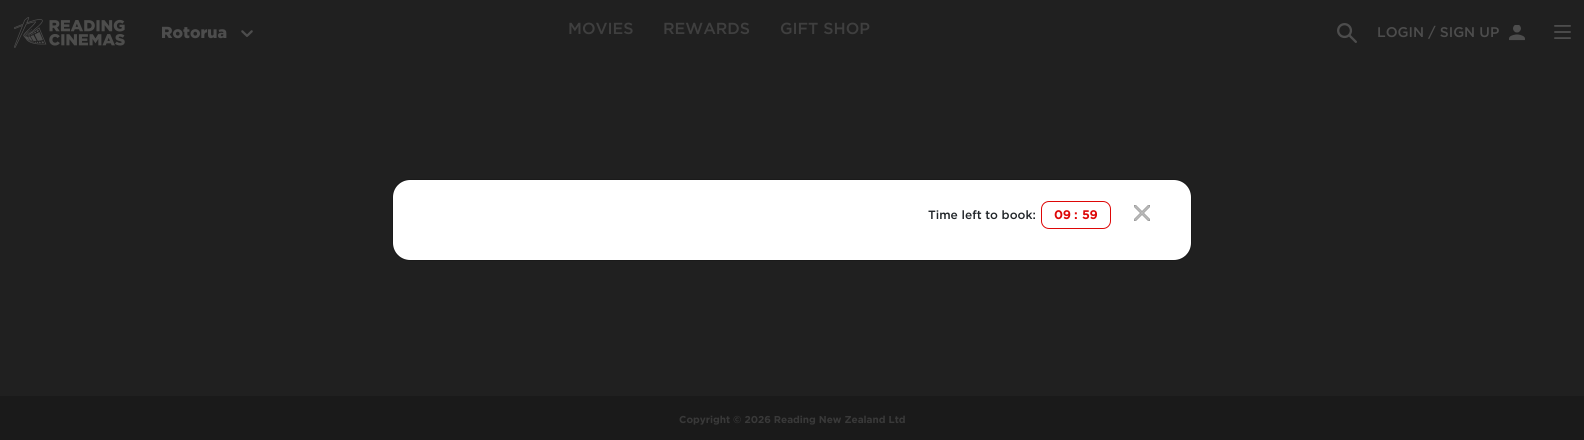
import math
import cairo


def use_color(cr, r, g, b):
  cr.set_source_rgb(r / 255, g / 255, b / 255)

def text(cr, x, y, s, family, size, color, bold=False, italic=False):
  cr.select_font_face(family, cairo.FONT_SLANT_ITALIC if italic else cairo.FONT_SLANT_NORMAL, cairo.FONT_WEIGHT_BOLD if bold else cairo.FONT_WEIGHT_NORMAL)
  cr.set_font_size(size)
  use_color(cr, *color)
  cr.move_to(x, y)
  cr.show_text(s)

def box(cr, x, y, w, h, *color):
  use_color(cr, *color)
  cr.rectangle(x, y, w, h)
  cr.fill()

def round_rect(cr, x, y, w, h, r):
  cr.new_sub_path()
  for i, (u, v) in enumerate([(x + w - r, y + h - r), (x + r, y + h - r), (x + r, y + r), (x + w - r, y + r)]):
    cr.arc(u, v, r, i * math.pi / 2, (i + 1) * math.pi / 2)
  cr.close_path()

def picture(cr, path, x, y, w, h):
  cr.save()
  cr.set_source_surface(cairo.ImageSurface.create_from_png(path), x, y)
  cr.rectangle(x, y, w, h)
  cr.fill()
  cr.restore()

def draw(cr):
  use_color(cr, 32, 32, 32)
  cr.paint()
  picture(cr, "img_01.png", 14, 17, 111, 31)
  picture(cr, "img_02.png", 241, 30, 12, 7)
  picture(cr, "img_03.png", 1337, 23, 20, 20)
  picture(cr, "img_04.png", 1509, 25, 16, 16)
  picture(cr, "img_05.png", 1554, 25, 17, 14)
  box(cr, 0, 396, 1584, 44, 26, 26, 26)
  use_color(cr, 255, 255, 255)
  round_rect(cr, 393, 180, 798, 80, 17)
  cr.fill()
  round_rect(cr, 392.5, 179.5, 799, 81, 17.5)
  cr.set_source_rgba(0, 0, 0, 0.2)
  cr.set_line_width(1)
  cr.stroke()
  round_rect(cr, 1041.5, 201.5, 69, 27, 7.5)
  use_color(cr, 222, 7, 7)
  cr.stroke()
  picture(cr, "img_06.png", 1134, 205, 16, 16)
  picture(cr, "img_07.png", 1134, 205, 16, 16)
  text(cr, 161, 38, "Rotorua", "Gotham Black", 16, (77, 77, 77))
  text(cr, 568, 34, "MOVIES", "Gotham Medium", 16, (63, 63, 63))
  text(cr, 663, 34, "REWARDS", "Gotham Medium", 16, (63, 63, 63))
  text(cr, 780, 34, "GIFT SHOP", "Gotham Medium", 16, (63, 63, 63))
  text(cr, 1377, 37, "LOGIN / SIGN UP", "Gotham Medium", 14, (77, 77, 77))
  text(cr, 679, 423, "Copyright © 2026 Reading New Zealand Ltd", "Gotham", 10, (57, 57, 57), bold=True)
  text(cr, 928, 219, "Time left to book:", "Gotham Medium", 12, (33, 37, 41))
  text(cr, 1054, 219, "09", "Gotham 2", 12, (222, 7, 7), bold=True)
  text(cr, 1074, 219, ":", "Gotham 2", 12, (222, 7, 7), bold=True)
  text(cr, 1082, 219, "59", "Gotham 2", 12, (222, 7, 7), bold=True)


surface = cairo.ImageSurface(cairo.FORMAT_RGB24, 1584, 440)
cr = cairo.Context(surface)
options = cairo.FontOptions()
options.set_hint_metrics(cairo.HINT_METRICS_OFF)
options.set_hint_style(cairo.HINT_STYLE_NONE)
cr.set_font_options(options)
cr.set_miter_limit(4)
draw(cr)
surface.write_to_png("out.png")
